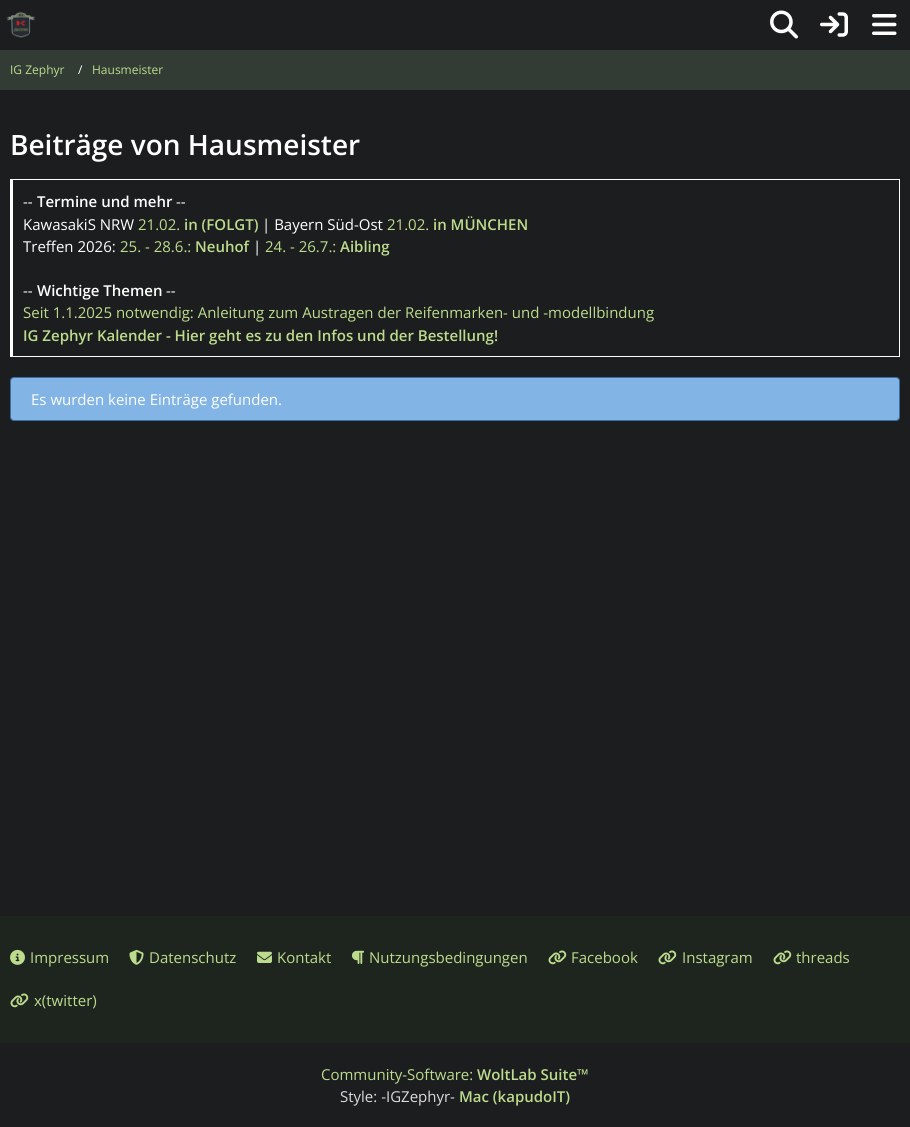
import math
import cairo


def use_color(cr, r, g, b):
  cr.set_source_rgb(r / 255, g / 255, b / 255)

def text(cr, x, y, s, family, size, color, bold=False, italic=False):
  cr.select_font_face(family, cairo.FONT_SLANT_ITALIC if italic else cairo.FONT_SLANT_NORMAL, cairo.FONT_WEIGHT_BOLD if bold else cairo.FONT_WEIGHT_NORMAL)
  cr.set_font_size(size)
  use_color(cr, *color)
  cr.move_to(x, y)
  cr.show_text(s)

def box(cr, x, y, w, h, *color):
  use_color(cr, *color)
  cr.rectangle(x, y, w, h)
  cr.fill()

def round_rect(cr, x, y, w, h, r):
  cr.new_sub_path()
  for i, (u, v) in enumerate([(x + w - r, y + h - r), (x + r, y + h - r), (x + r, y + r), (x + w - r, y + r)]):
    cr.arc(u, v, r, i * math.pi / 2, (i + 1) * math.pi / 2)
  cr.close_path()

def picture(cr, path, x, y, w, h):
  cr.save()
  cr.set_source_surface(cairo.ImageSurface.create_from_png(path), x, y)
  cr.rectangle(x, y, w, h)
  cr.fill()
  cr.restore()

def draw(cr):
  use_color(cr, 28, 29, 30)
  cr.paint()
  picture(cr, "img_01.png", 6, 12, 30, 26)
  picture(cr, "img_02.png", 770, 10, 28, 29)
  picture(cr, "img_03.png", 820, 12, 28, 25)
  picture(cr, "img_04.png", 872, 14, 25, 21)
  box(cr, 0, 50, 910, 40, 50, 60, 52)
  box(cr, 10, 179, 890, 1, 255, 255, 255)
  box(cr, 899, 179, 1, 178, 255, 255, 255)
  box(cr, 10, 356, 890, 1, 255, 255, 255)
  box(cr, 10, 179, 3, 178, 255, 255, 255)
  use_color(cr, 130, 180, 230)
  round_rect(cr, 10.5, 377.5, 889, 43, 3.5)
  cr.fill_preserve()
  use_color(cr, 61, 110, 160)
  cr.set_line_width(1)
  cr.stroke()
  box(cr, 0, 916, 910, 127, 30, 37, 30)
  picture(cr, "img_05.png", 10, 949, 15, 16)
  picture(cr, "img_06.png", 129, 949, 15, 16)
  picture(cr, "img_07.png", 257, 951, 15, 12)
  picture(cr, "img_08.png", 351, 950, 14, 14)
  picture(cr, "img_09.png", 548, 950, 19, 15)
  picture(cr, "img_09.png", 658, 950, 19, 15)
  picture(cr, "img_09.png", 773, 950, 19, 15)
  picture(cr, "img_09.png", 10, 993, 19, 15)
  text(cr, 10, 74, "IG Zephyr", "Open Sans", 12, (188, 219, 141))
  text(cr, 78, 74, "/", "Open Sans", 12, (255, 255, 255))
  text(cr, 92, 74, "Hausmeister", "Open Sans", 12, (188, 219, 141))
  text(cr, 10, 155, "Beiträge von Hausmeister", "Open Sans SemiBold", 28, (255, 255, 255))
  text(cr, 23, 207, "--", "Open Sans", 15, (255, 255, 255))
  text(cr, 37, 207, "Termine und mehr", "Open Sans SemiBold", 15, (255, 255, 255))
  text(cr, 176, 207, "--", "Open Sans", 15, (255, 255, 255))
  text(cr, 23, 230, "KawasakiS NRW", "Open Sans", 15, (255, 255, 255))
  text(cr, 138, 230, "21.02.", "Open Sans", 15, (188, 219, 141))
  text(cr, 184, 230, "in (FOLGT)", "Open Sans SemiBold", 15, (188, 219, 141))
  text(cr, 262, 230, "| Bayern Süd-Ost", "Open Sans", 15, (255, 255, 255))
  text(cr, 387, 230, "21.02.", "Open Sans", 15, (188, 219, 141))
  text(cr, 433, 230, "in MÜNCHEN", "Open Sans SemiBold", 15, (188, 219, 141))
  text(cr, 23, 252, "Treffen 2026:", "Open Sans", 15, (255, 255, 255))
  text(cr, 120, 252, "25. - 28.6.:", "Open Sans", 15, (188, 219, 141))
  text(cr, 195, 252, "Neuhof", "Open Sans SemiBold", 15, (188, 219, 141))
  text(cr, 253, 252, "|", "Open Sans", 15, (255, 255, 255))
  text(cr, 265, 252, "24. - 26.7.:", "Open Sans", 15, (188, 219, 141))
  text(cr, 340, 252, "Aibling", "Open Sans SemiBold", 15, (188, 219, 141))
  text(cr, 23, 296, "--", "Open Sans", 15, (255, 255, 255))
  text(cr, 37, 296, "Wichtige Themen", "Open Sans SemiBold", 15, (255, 255, 255))
  text(cr, 166, 296, "--", "Open Sans", 15, (255, 255, 255))
  text(cr, 23, 318, "Seit 1.1.2025 notwendig: Anleitung zum Austragen der Reifenmarken- und -modellbindung", "Open Sans", 15, (188, 219, 141))
  text(cr, 23, 341, "IG Zephyr Kalender - Hier geht es zu den Infos und der Bestellung!", "Open Sans SemiBold", 15, (188, 219, 141))
  text(cr, 31, 405, "Es wurden keine Einträge gefunden.", "Open Sans", 15, (255, 255, 255))
  text(cr, 30, 963, "Impressum", "Open Sans", 15, (188, 219, 141))
  text(cr, 149, 963, "Datenschutz", "Open Sans", 15, (188, 219, 141))
  text(cr, 277, 963, "Kontakt", "Open Sans", 15, (188, 219, 141))
  text(cr, 369, 963, "Nutzungsbedingungen", "Open Sans", 15, (188, 219, 141))
  text(cr, 571, 963, "Facebook", "Open Sans", 15, (188, 219, 141))
  text(cr, 682, 963, "Instagram", "Open Sans", 15, (188, 219, 141))
  text(cr, 796, 963, "threads", "Open Sans", 15, (188, 219, 141))
  text(cr, 34, 1006, "x(twitter)", "Open Sans", 15, (188, 219, 141))
  text(cr, 321, 1080, "Community-Software:", "Open Sans", 15, (188, 219, 141))
  text(cr, 477, 1080, "WoltLab Suite™", "Open Sans SemiBold", 15, (188, 219, 141))
  text(cr, 340, 1102, "Style: -IGZephyr-", "Open Sans", 15, (219, 219, 219))
  text(cr, 459, 1102, "Mac (kapudoIT)", "Open Sans SemiBold", 15, (188, 219, 141))


surface = cairo.ImageSurface(cairo.FORMAT_RGB24, 910, 1127)
cr = cairo.Context(surface)
options = cairo.FontOptions()
options.set_hint_metrics(cairo.HINT_METRICS_OFF)
options.set_hint_style(cairo.HINT_STYLE_NONE)
cr.set_font_options(options)
cr.set_miter_limit(4)
draw(cr)
surface.write_to_png("out.png")
